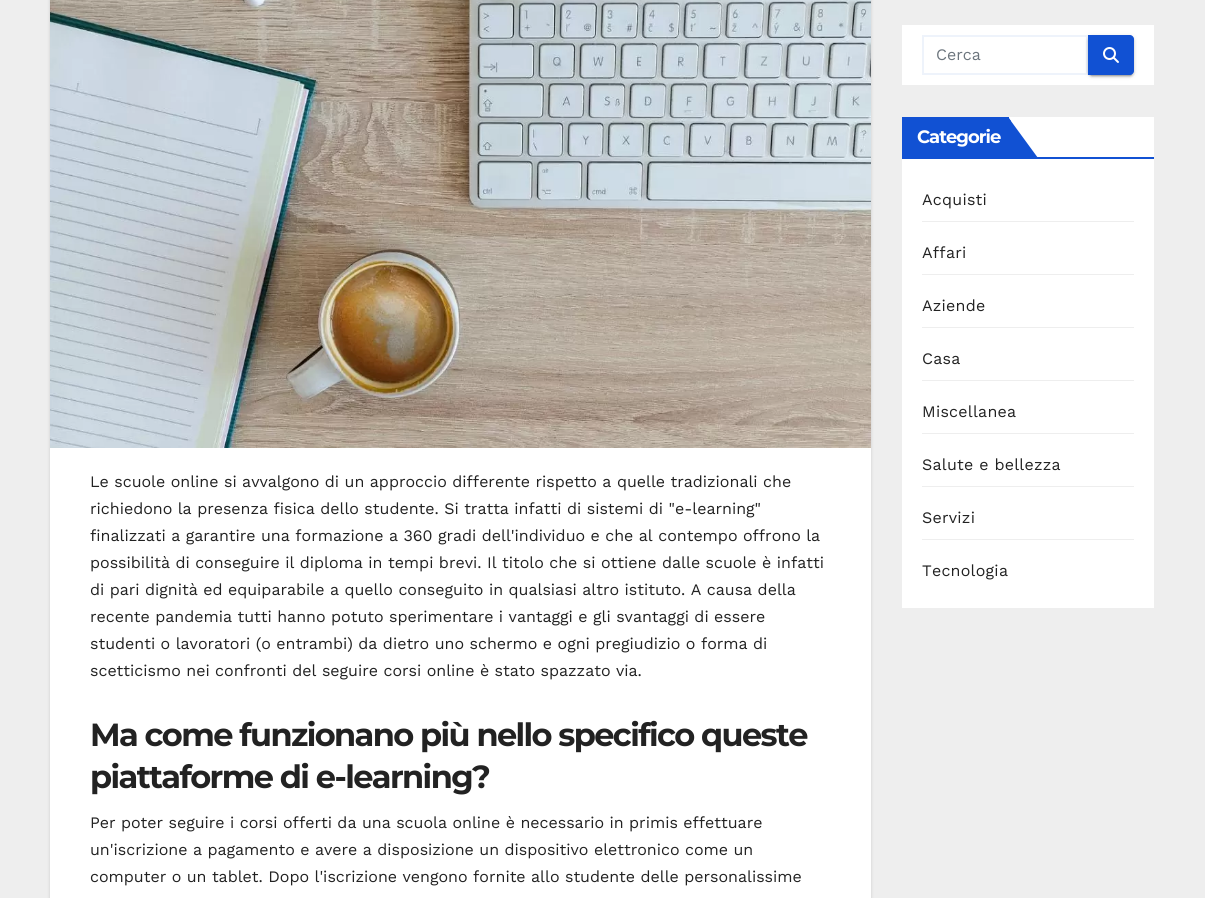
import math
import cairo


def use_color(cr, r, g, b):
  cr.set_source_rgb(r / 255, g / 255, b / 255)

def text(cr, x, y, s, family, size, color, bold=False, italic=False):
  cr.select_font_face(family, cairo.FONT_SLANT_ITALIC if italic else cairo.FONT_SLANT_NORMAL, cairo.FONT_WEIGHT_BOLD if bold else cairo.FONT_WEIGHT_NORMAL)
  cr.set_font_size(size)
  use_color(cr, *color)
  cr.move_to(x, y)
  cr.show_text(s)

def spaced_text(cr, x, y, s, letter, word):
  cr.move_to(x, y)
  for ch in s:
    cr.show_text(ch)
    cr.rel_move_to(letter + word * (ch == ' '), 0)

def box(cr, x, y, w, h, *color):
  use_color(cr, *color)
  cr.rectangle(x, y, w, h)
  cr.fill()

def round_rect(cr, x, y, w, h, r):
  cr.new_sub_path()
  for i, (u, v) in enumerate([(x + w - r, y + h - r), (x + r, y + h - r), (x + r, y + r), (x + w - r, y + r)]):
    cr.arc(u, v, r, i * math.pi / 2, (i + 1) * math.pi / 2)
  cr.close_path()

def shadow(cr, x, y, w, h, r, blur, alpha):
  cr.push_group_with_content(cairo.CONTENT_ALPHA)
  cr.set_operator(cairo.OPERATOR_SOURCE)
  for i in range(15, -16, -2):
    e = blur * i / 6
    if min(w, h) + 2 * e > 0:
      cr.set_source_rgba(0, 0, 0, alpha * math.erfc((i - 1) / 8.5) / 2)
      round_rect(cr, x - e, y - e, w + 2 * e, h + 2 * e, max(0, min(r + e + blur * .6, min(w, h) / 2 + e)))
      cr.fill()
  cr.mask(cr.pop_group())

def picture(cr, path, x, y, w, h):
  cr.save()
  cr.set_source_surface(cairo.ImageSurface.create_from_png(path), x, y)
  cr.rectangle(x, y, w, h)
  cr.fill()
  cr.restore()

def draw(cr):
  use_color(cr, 238, 238, 238)
  cr.paint()
  box(cr, 902, 25, 252, 60, 255, 255, 255)
  cr.rectangle(923, 36, 164, 38)
  use_color(cr, 238, 243, 251)
  cr.stroke()
  use_color(cr, 0, 0, 0)
  shadow(cr, 1088, 36, 46, 40, 4, 2.5, 0.12)
  shadow(cr, 1090, 40, 42, 36, 2, 0.5, 0.2)
  shadow(cr, 1088, 37, 46, 40, 4, 1, 0.14)
  use_color(cr, 17, 81, 211)
  cr.new_path()
  cr.move_to(1088, 35)
  cr.line_to(1130, 35)
  cr.curve_to(1132, 35, 1134, 37, 1134, 39)
  cr.line_to(1134, 71)
  cr.curve_to(1134, 73, 1132, 75, 1130, 75)
  cr.line_to(1088, 75)
  cr.close_path()
  cr.fill()
  picture(cr, "img_01.png", 1103, 47, 16, 16)
  box(cr, 902, 117, 252, 491, 255, 255, 255)
  box(cr, 902, 157, 252, 2, 17, 81, 211)
  box(cr, 902, 117, 107, 40, 17, 81, 211)
  cr.new_path()
  cr.move_to(1008, 117)
  cr.line_to(1008, 159)
  cr.line_to(1038, 159)
  cr.line_to(1038, 158)
  cr.close_path()
  cr.fill()
  cr.new_path()
  cr.move_to(1011, 121)
  cr.line_to(1011, 156)
  cr.line_to(1008, 159)
  cr.line_to(1008, 117)
  cr.close_path()
  cr.fill()
  box(cr, 922, 221, 212, 1, 238, 238, 238)
  box(cr, 922, 274, 212, 1, 238, 238, 238)
  box(cr, 922, 327, 212, 1, 238, 238, 238)
  box(cr, 922, 380, 212, 1, 238, 238, 238)
  box(cr, 922, 433, 212, 1, 238, 238, 238)
  box(cr, 922, 486, 212, 1, 238, 238, 238)
  box(cr, 922, 539, 212, 1, 238, 238, 238)
  use_color(cr, 0, 0, 0)
  shadow(cr, 50, -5, 821, 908, 0, 1.5, 0.15)
  box(cr, 50, 448, 821, 450, 255, 255, 255)
  picture(cr, "img_02.png", 50, 0, 821, 448)
  text(cr, 936, 60, "Cerca", "Work Sans", 16, (108, 117, 125))
  cr.select_font_face("Montserrat", cairo.FONT_SLANT_NORMAL, cairo.FONT_WEIGHT_BOLD)
  cr.set_font_size(18)
  use_color(cr, 255, 255, 255)
  spaced_text(cr, 917, 143, "Categorie", -1, 0)
  cr.select_font_face("Work Sans")
  cr.set_font_size(16)
  use_color(cr, 34, 34, 34)
  spaced_text(cr, 922, 205, "Acquisti", 0.25, 0)
  spaced_text(cr, 922, 258, "Affari", 0.25, 0)
  spaced_text(cr, 922, 311, "Aziende", 0.25, 0)
  spaced_text(cr, 922, 364, "Casa", 0.25, 0)
  spaced_text(cr, 922, 417, "Miscellanea", 0.25, 0)
  spaced_text(cr, 922, 470, "Salute e bellezza", 0.25, 0)
  spaced_text(cr, 922, 523, "Servizi", 0.25, 0)
  spaced_text(cr, 922, 576, "Tecnologia", 0.25, 0)
  text(cr, 90, 487, "Le scuole online si avvalgono di un approccio differente rispetto a quelle tradizionali che", "Work Sans", 16, (34, 34, 34))
  text(cr, 90, 514, "richiedono la presenza fisica dello studente. Si tratta infatti di sistemi di \"e-learning\"", "Work Sans", 16, (34, 34, 34))
  text(cr, 90, 541, "finalizzati a garantire una formazione a 360 gradi dell'individuo e che al contempo offrono la", "Work Sans", 16, (34, 34, 34))
  text(cr, 90, 568, "possibilità di conseguire il diploma in tempi brevi. Il titolo che si ottiene dalle scuole è infatti", "Work Sans", 16, (34, 34, 34))
  text(cr, 90, 595, "di pari dignità ed equiparabile a quello conseguito in qualsiasi altro istituto. A causa della", "Work Sans", 16, (34, 34, 34))
  text(cr, 90, 622, "recente pandemia tutti hanno potuto sperimentare i vantaggi e gli svantaggi di essere", "Work Sans", 16, (34, 34, 34))
  text(cr, 90, 649, "studenti o lavoratori (o entrambi) da dietro uno schermo e ogni pregiudizio o forma di", "Work Sans", 16, (34, 34, 34))
  text(cr, 90, 676, "scetticismo nei confronti del seguire corsi online è stato spazzato via.", "Work Sans", 16, (34, 34, 34))
  cr.select_font_face("Montserrat", cairo.FONT_SLANT_NORMAL, cairo.FONT_WEIGHT_BOLD)
  cr.set_font_size(32)
  spaced_text(cr, 90, 746, "Ma come funzionano più nello specifico queste", -1.6, 0)
  spaced_text(cr, 90, 788, "piattaforme di e-learning?", -1.6, 0)
  text(cr, 90, 828, "Per poter seguire i corsi offerti da una scuola online è necessario in primis effettuare", "Work Sans", 16, (34, 34, 34))
  text(cr, 90, 855, "un'iscrizione a pagamento e avere a disposizione un dispositivo elettronico come un", "Work Sans", 16, (34, 34, 34))
  text(cr, 90, 882, "computer o un tablet. Dopo l'iscrizione vengono fornite allo studente delle personalissime", "Work Sans", 16, (34, 34, 34))


surface = cairo.ImageSurface(cairo.FORMAT_RGB24, 1205, 898)
cr = cairo.Context(surface)
options = cairo.FontOptions()
options.set_hint_metrics(cairo.HINT_METRICS_OFF)
options.set_hint_style(cairo.HINT_STYLE_NONE)
cr.set_font_options(options)
cr.set_miter_limit(4)
draw(cr)
surface.write_to_png("out.png")
